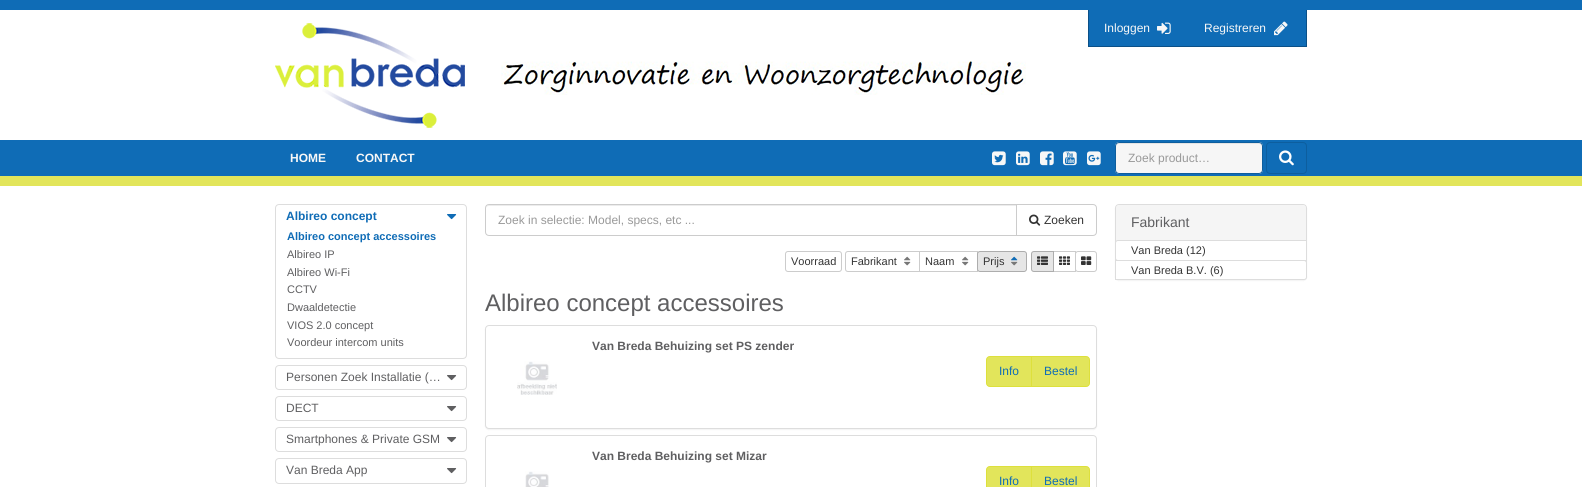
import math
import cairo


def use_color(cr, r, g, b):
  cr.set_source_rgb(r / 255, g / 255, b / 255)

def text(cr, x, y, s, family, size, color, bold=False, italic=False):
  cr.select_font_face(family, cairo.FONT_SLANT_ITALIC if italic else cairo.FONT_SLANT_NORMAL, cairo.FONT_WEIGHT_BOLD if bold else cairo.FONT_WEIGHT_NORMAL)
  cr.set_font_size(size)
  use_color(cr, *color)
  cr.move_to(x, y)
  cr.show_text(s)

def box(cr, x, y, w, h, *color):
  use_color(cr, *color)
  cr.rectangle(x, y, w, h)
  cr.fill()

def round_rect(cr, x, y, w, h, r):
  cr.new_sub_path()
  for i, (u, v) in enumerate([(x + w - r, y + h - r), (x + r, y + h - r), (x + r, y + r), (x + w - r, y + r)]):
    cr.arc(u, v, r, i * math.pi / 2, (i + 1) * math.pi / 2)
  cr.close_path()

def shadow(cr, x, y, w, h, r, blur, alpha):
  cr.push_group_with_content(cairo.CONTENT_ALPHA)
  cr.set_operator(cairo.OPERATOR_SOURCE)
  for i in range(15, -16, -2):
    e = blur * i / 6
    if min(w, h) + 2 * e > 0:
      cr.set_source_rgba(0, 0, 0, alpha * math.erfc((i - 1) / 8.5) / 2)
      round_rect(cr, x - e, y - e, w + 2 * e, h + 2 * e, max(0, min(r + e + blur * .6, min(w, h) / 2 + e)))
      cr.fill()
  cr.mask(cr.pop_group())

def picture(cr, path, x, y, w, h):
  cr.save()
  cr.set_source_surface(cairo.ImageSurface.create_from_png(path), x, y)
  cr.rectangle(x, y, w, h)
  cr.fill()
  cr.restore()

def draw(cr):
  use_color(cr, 255, 255, 255)
  cr.paint()
  box(cr, 0, 0, 1582, 10, 15, 108, 182)
  picture(cr, "img_01.png", 275, 23, 190, 105)
  picture(cr, "img_02.png", 501, 61, 525, 34)
  box(cr, 1089, 10, 217, 36, 15, 108, 182)
  box(cr, 1306, 10, 1, 37, 11, 80, 135)
  box(cr, 1088, 46, 219, 1, 11, 80, 135)
  box(cr, 1088, 10, 1, 37, 11, 80, 135)
  picture(cr, "img_03.png", 1157, 22, 14, 12)
  picture(cr, "img_04.png", 1274, 21, 14, 15)
  box(cr, 0, 140, 1582, 36, 15, 108, 182)
  box(cr, 0, 176, 1582, 10, 226, 229, 91)
  picture(cr, "img_05.png", 992, 151, 14, 15)
  picture(cr, "img_06.png", 1016, 151, 14, 15)
  picture(cr, "img_07.png", 1040, 151, 14, 15)
  picture(cr, "img_08.png", 1063, 151, 14, 15)
  picture(cr, "img_09.png", 1087, 151, 14, 15)
  use_color(cr, 246, 246, 246)
  round_rect(cr, 1115, 142, 148, 32, 4)
  cr.fill()
  use_color(cr, 228, 228, 228)
  cr.new_path()
  cr.move_to(1119, 144)
  cr.line_to(1259, 144)
  cr.curve_to(1261, 144, 1262, 145, 1262, 147)
  cr.line_to(1262, 146)
  cr.curve_to(1262, 144, 1261, 143, 1259, 143)
  cr.line_to(1119, 143)
  cr.curve_to(1117, 143, 1116, 144, 1116, 146)
  cr.line_to(1116, 147)
  cr.curve_to(1116, 145, 1117, 144, 1119, 144)
  cr.close_path()
  cr.fill()
  round_rect(cr, 1115.5, 142.5, 147, 31, 3.5)
  use_color(cr, 13, 94, 158)
  cr.set_line_width(1)
  cr.stroke()
  round_rect(cr, 1266.5, 142.5, 40, 31, 3.5)
  cr.stroke()
  picture(cr, "img_10.png", 1279, 150, 15, 16)
  round_rect(cr, 275.5, 204.5, 191, 154, 3.5)
  use_color(cr, 221, 221, 221)
  cr.stroke()
  picture(cr, "img_11.png", 447, 214, 10, 6)
  round_rect(cr, 275.5, 365.5, 191, 24, 3.5)
  cr.stroke()
  picture(cr, "img_12.png", 447, 375, 10, 6)
  round_rect(cr, 275.5, 396.5, 191, 24, 3.5)
  cr.stroke()
  picture(cr, "img_12.png", 447, 406, 10, 6)
  round_rect(cr, 275.5, 427.5, 191, 24, 3.5)
  cr.stroke()
  picture(cr, "img_12.png", 447, 437, 10, 6)
  round_rect(cr, 275.5, 458.5, 191, 25, 3.5)
  cr.stroke()
  picture(cr, "img_12.png", 447, 468, 10, 6)
  cr.new_path()
  cr.move_to(1016.5, 204.5)
  cr.line_to(1093, 204.5)
  cr.curve_to(1095, 204.5, 1096.5, 206, 1096.5, 208)
  cr.line_to(1096.5, 232)
  cr.curve_to(1096.5, 234, 1095, 235.5, 1093, 235.5)
  cr.line_to(1016.5, 235.5)
  cr.close_path()
  use_color(cr, 204, 204, 204)
  cr.stroke()
  use_color(cr, 255, 255, 255)
  cr.new_path()
  cr.move_to(489, 204)
  cr.line_to(1017, 204)
  cr.line_to(1017, 236)
  cr.line_to(489, 236)
  cr.curve_to(487, 236, 485, 234, 485, 232)
  cr.line_to(485, 208)
  cr.curve_to(485, 206, 487, 204, 489, 204)
  cr.close_path()
  cr.fill()
  use_color(cr, 236, 236, 236)
  cr.new_path()
  cr.move_to(489, 206)
  cr.line_to(1016, 206)
  cr.line_to(1016, 205)
  cr.line_to(489, 205)
  cr.curve_to(487, 205, 486, 207, 486, 209)
  cr.curve_to(486, 207, 487, 206, 489, 206)
  cr.close_path()
  cr.fill()
  cr.new_path()
  cr.move_to(489, 204.5)
  cr.line_to(1016.5, 204.5)
  cr.line_to(1016.5, 235.5)
  cr.line_to(489, 235.5)
  cr.curve_to(487, 235.5, 485.5, 234, 485.5, 232)
  cr.line_to(485.5, 208)
  cr.curve_to(485.5, 206, 487, 204.5, 489, 204.5)
  cr.close_path()
  use_color(cr, 204, 204, 204)
  cr.stroke()
  picture(cr, "img_13.png", 1029, 214, 12, 12)
  round_rect(cr, 785.5, 251.5, 56, 20, 2.5)
  cr.stroke()
  cr.new_path()
  cr.move_to(848, 251.5)
  cr.line_to(919.5, 251.5)
  cr.line_to(919.5, 271.5)
  cr.line_to(848, 271.5)
  cr.curve_to(846.5, 271.5, 845.5, 270.5, 845.5, 269)
  cr.line_to(845.5, 254)
  cr.curve_to(845.5, 252.5, 846.5, 251.5, 848, 251.5)
  cr.close_path()
  cr.stroke()
  picture(cr, "img_14.png", 904, 256, 7, 5)
  picture(cr, "img_15.png", 904, 261, 7, 5)
  cr.rectangle(919.5, 251.5, 58, 20)
  cr.stroke()
  picture(cr, "img_14.png", 962, 256, 7, 5)
  picture(cr, "img_15.png", 962, 261, 7, 5)
  use_color(cr, 230, 230, 230)
  round_rect(cr, 977.5, 251.5, 49, 20, 2.5)
  cr.fill_preserve()
  use_color(cr, 173, 173, 173)
  cr.stroke()
  picture(cr, "img_16.png", 1011, 256, 7, 5)
  picture(cr, "img_17.png", 1011, 261, 7, 5)
  cr.rectangle(1053.5, 251.5, 22, 20)
  use_color(cr, 204, 204, 204)
  cr.stroke()
  use_color(cr, 230, 230, 230)
  cr.new_path()
  cr.move_to(1034, 251.5)
  cr.line_to(1053.5, 251.5)
  cr.line_to(1053.5, 271.5)
  cr.line_to(1034, 271.5)
  cr.curve_to(1032.5, 271.5, 1031.5, 270.5, 1031.5, 269)
  cr.line_to(1031.5, 254)
  cr.curve_to(1031.5, 252.5, 1032.5, 251.5, 1034, 251.5)
  cr.close_path()
  cr.fill_preserve()
  use_color(cr, 173, 173, 173)
  cr.stroke()
  picture(cr, "img_18.png", 1037, 256, 11, 9)
  picture(cr, "img_19.png", 1059, 256, 11, 9)
  use_color(cr, 255, 255, 255)
  round_rect(cr, 1075.5, 251.5, 21, 20, 2.5)
  cr.fill_preserve()
  use_color(cr, 204, 204, 204)
  cr.stroke()
  picture(cr, "img_20.png", 1081, 256, 11, 9)
  use_color(cr, 0, 0, 0)
  shadow(cr, 485, 326, 612, 104, 4, 0.5, 0.05)
  use_color(cr, 255, 255, 255)
  round_rect(cr, 485.5, 325.5, 611, 103, 3.5)
  cr.fill_preserve()
  use_color(cr, 221, 221, 221)
  cr.stroke()
  picture(cr, "img_21.png", 517, 361, 40, 34)
  use_color(cr, 226, 229, 91)
  cr.new_path()
  cr.move_to(990, 356.5)
  cr.line_to(1031.5, 356.5)
  cr.line_to(1031.5, 386.5)
  cr.line_to(990, 386.5)
  cr.curve_to(988, 386.5, 986.5, 385, 986.5, 383)
  cr.line_to(986.5, 360)
  cr.curve_to(986.5, 358, 988, 356.5, 990, 356.5)
  cr.close_path()
  cr.fill_preserve()
  use_color(cr, 221, 224, 60)
  cr.stroke()
  use_color(cr, 226, 229, 91)
  cr.new_path()
  cr.move_to(1031.5, 356.5)
  cr.line_to(1086, 356.5)
  cr.curve_to(1088, 356.5, 1089.5, 358, 1089.5, 360)
  cr.line_to(1089.5, 383)
  cr.curve_to(1089.5, 385, 1088, 386.5, 1086, 386.5)
  cr.line_to(1031.5, 386.5)
  cr.close_path()
  cr.fill_preserve()
  use_color(cr, 221, 224, 60)
  cr.stroke()
  round_rect(cr, 485.5, 435.5, 611, 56, 3.5)
  use_color(cr, 221, 221, 221)
  cr.stroke()
  picture(cr, "img_22.png", 525, 471, 24, 16)
  use_color(cr, 226, 229, 91)
  cr.new_path()
  cr.move_to(990, 466.5)
  cr.line_to(1031.5, 466.5)
  cr.line_to(1031.5, 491.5)
  cr.line_to(990, 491.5)
  cr.curve_to(988, 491.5, 986.5, 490, 986.5, 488)
  cr.line_to(986.5, 470)
  cr.curve_to(986.5, 468, 988, 466.5, 990, 466.5)
  cr.close_path()
  cr.fill_preserve()
  use_color(cr, 221, 224, 60)
  cr.stroke()
  use_color(cr, 226, 229, 91)
  cr.new_path()
  cr.move_to(1031.5, 466.5)
  cr.line_to(1086, 466.5)
  cr.curve_to(1088, 466.5, 1089.5, 468, 1089.5, 470)
  cr.line_to(1089.5, 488)
  cr.curve_to(1089.5, 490, 1088, 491.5, 1086, 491.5)
  cr.line_to(1031.5, 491.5)
  cr.close_path()
  cr.fill_preserve()
  use_color(cr, 221, 224, 60)
  cr.stroke()
  use_color(cr, 0, 0, 0)
  shadow(cr, 1115, 205, 192, 76, 4, 0.5, 0.05)
  round_rect(cr, 1115.5, 204.5, 191, 75, 3.5)
  use_color(cr, 221, 221, 221)
  cr.stroke()
  use_color(cr, 245, 245, 245)
  cr.new_path()
  cr.move_to(1119, 205)
  cr.line_to(1303, 205)
  cr.curve_to(1304.5, 205, 1306, 206.5, 1306, 208)
  cr.line_to(1306, 241)
  cr.line_to(1116, 241)
  cr.line_to(1116, 208)
  cr.curve_to(1116, 206.5, 1117.5, 205, 1119, 205)
  cr.close_path()
  cr.fill()
  use_color(cr, 255, 255, 255)
  cr.new_path()
  cr.move_to(1118, 240.5)
  cr.line_to(1306.5, 240.5)
  cr.line_to(1306.5, 260.5)
  cr.line_to(1118, 260.5)
  cr.curve_to(1116.5, 260.5, 1115.5, 259.5, 1115.5, 258)
  cr.line_to(1115.5, 243)
  cr.curve_to(1115.5, 241.5, 1116.5, 240.5, 1118, 240.5)
  cr.close_path()
  cr.fill_preserve()
  use_color(cr, 221, 221, 221)
  cr.stroke()
  use_color(cr, 255, 255, 255)
  cr.new_path()
  cr.move_to(1115.5, 260.5)
  cr.line_to(1304, 260.5)
  cr.curve_to(1305.5, 260.5, 1306.5, 261.5, 1306.5, 263)
  cr.line_to(1306.5, 277)
  cr.curve_to(1306.5, 278.5, 1305.5, 279.5, 1304, 279.5)
  cr.line_to(1115.5, 279.5)
  cr.close_path()
  cr.fill_preserve()
  use_color(cr, 221, 221, 221)
  cr.stroke()
  text(cr, 1104, 32, "Inloggen", "Liberation Sans", 12, (247, 247, 247))
  text(cr, 1204, 32, "Registreren", "Liberation Sans", 12, (247, 247, 247))
  text(cr, 290, 162, "HOME", "Liberation Sans", 12, (247, 247, 247), bold=True)
  text(cr, 356, 162, "CONTACT", "Liberation Sans", 12, (247, 247, 247), bold=True)
  text(cr, 1128, 162, "Zoek product…", "Liberation Sans", 12, (153, 153, 153))
  text(cr, 286, 220, "Albireo concept", "Liberation Sans", 12, (15, 108, 182), bold=True)
  text(cr, 287, 240, "Albireo concept accessoires", "Liberation Sans", 11, (15, 108, 182), bold=True)
  text(cr, 287, 258, "Albireo IP", "Liberation Sans", 11, (95, 95, 97))
  text(cr, 287, 276, "Albireo Wi-Fi", "Liberation Sans", 11, (95, 95, 97))
  text(cr, 287, 293, "CCTV", "Liberation Sans", 11, (95, 95, 97))
  text(cr, 287, 311, "Dwaaldetectie", "Liberation Sans", 11, (95, 95, 97))
  text(cr, 287, 329, "VIOS 2.0 concept", "Liberation Sans", 11, (95, 95, 97))
  text(cr, 287, 346, "Voordeur intercom units", "Liberation Sans", 11, (95, 95, 97))
  text(cr, 286, 381, "Personen Zoek Installatie (…", "Liberation Sans", 12, (95, 95, 97))
  text(cr, 286, 412, "DECT", "Liberation Sans", 12, (95, 95, 97))
  text(cr, 286, 443, "Smartphones & Private GSM", "Liberation Sans", 12, (95, 95, 97))
  text(cr, 286, 474, "Van Breda App", "Liberation Sans", 12, (95, 95, 97))
  text(cr, 498, 224, "Zoek in selectie: Model, specs, etc ...", "Liberation Sans", 12, (153, 153, 153))
  text(cr, 1044, 224, "Zoeken", "Liberation Sans", 12, (51, 51, 51))
  text(cr, 791, 265, "Voorraad", "Liberation Sans", 11, (51, 51, 51))
  text(cr, 851, 265, "Fabrikant", "Liberation Sans", 11, (51, 51, 51))
  text(cr, 925, 265, "Naam", "Liberation Sans", 11, (51, 51, 51))
  text(cr, 983, 265, "Prijs", "Liberation Sans", 11, (51, 51, 51))
  text(cr, 485, 311, "Albireo concept accessoires", "Liberation Sans", 24, (95, 95, 97))
  text(cr, 592, 350, "Van Breda Behuizing set PS zender", "Liberation Sans", 12, (95, 95, 97), bold=True)
  text(cr, 999, 375, "Info", "Liberation Sans", 12, (15, 108, 182))
  text(cr, 1044, 375, "Bestel", "Liberation Sans", 12, (15, 108, 182))
  text(cr, 592, 460, "Van Breda Behuizing set Mizar", "Liberation Sans", 12, (95, 95, 97), bold=True)
  text(cr, 999, 485, "Info", "Liberation Sans", 12, (15, 108, 182))
  text(cr, 1044, 485, "Bestel", "Liberation Sans", 12, (15, 108, 182))
  text(cr, 1131, 227, "Fabrikant", "Liberation Sans", 14, (95, 95, 97))
  text(cr, 1131, 254, "Van Breda (12)", "Liberation Sans", 11, (51, 51, 51))
  text(cr, 1131, 274, "Van Breda B.V. (6)", "Liberation Sans", 11, (51, 51, 51))


surface = cairo.ImageSurface(cairo.FORMAT_RGB24, 1582, 487)
cr = cairo.Context(surface)
options = cairo.FontOptions()
options.set_hint_metrics(cairo.HINT_METRICS_OFF)
options.set_hint_style(cairo.HINT_STYLE_NONE)
cr.set_font_options(options)
cr.set_miter_limit(4)
draw(cr)
surface.write_to_png("out.png")
